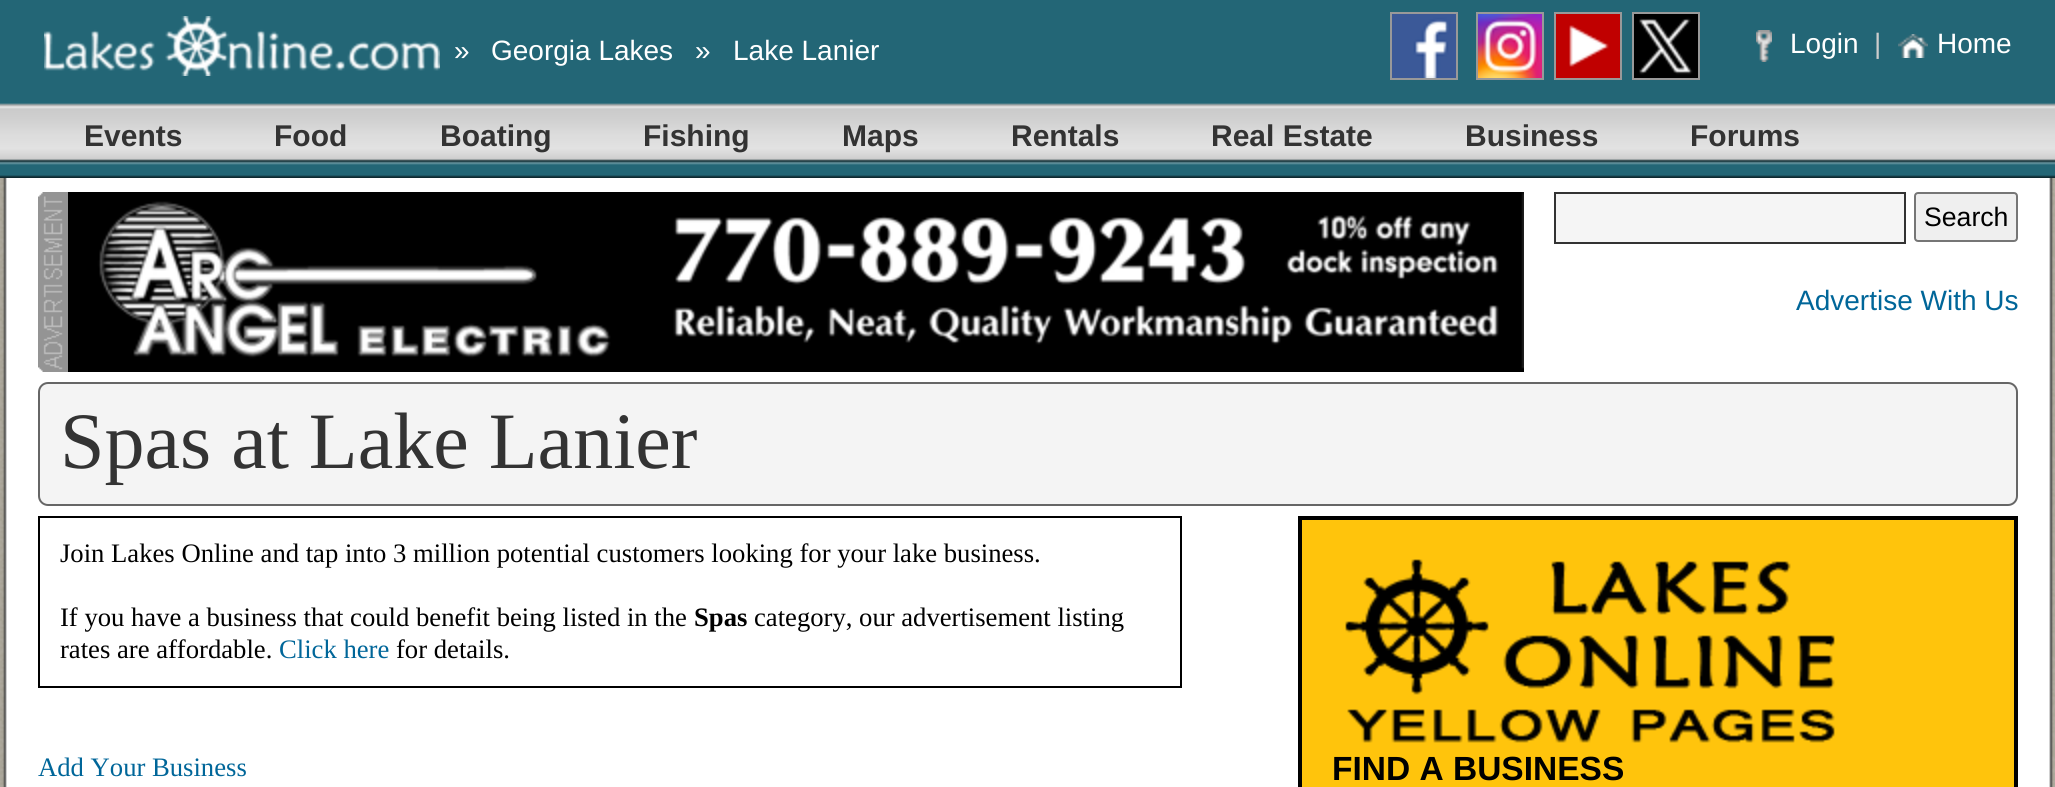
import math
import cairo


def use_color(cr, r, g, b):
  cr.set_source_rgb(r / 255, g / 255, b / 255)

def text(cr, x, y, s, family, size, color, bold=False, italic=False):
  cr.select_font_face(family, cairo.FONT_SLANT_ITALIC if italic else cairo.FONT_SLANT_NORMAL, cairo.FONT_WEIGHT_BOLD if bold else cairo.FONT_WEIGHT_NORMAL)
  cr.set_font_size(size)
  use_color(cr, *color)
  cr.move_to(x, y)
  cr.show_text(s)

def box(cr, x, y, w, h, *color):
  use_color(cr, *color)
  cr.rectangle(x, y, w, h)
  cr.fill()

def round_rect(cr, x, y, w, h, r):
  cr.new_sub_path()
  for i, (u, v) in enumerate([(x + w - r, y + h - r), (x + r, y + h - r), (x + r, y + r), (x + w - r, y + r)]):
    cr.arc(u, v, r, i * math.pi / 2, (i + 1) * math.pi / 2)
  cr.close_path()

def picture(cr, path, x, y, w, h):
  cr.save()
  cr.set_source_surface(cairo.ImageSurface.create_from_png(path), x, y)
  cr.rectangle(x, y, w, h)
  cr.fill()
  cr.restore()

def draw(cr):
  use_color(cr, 255, 255, 255)
  cr.paint()
  picture(cr, "img_01.png", 0, 178, 2055, 609)
  box(cr, 0, 0, 2055, 178, 35, 102, 118)
  picture(cr, "img_02.png", 44, 16, 396, 60)
  cr.rectangle(1391, 13, 66, 66)
  use_color(cr, 153, 153, 153)
  cr.stroke()
  cr.rectangle(1477, 13, 66, 66)
  cr.stroke()
  cr.rectangle(1555, 13, 66, 66)
  cr.stroke()
  cr.rectangle(1633, 13, 66, 66)
  cr.stroke()
  picture(cr, "img_03.png", 1392, 14, 64, 64)
  picture(cr, "img_04.png", 1478, 14, 64, 64)
  picture(cr, "img_05.png", 1556, 14, 64, 64)
  picture(cr, "img_06.png", 1634, 14, 64, 64)
  picture(cr, "img_07.png", 1756, 30, 16, 32)
  picture(cr, "img_08.png", 1898, 34, 30, 24)
  picture(cr, "img_09.png", 0, 103, 2055, 75)
  picture(cr, "img_10.png", 38, 192, 30, 180)
  picture(cr, "img_11.png", 68, 192, 1456, 180)
  use_color(cr, 245, 245, 245)
  cr.rectangle(1555, 193, 350, 50)
  cr.fill_preserve()
  use_color(cr, 51, 51, 51)
  cr.stroke()
  use_color(cr, 239, 239, 239)
  round_rect(cr, 1915, 193, 102, 48, 3)
  cr.fill_preserve()
  use_color(cr, 118, 118, 118)
  cr.stroke()
  use_color(cr, 244, 244, 244)
  round_rect(cr, 39, 383, 1978, 122, 9)
  cr.fill_preserve()
  use_color(cr, 102, 102, 102)
  cr.stroke()
  cr.rectangle(39, 517, 1142, 170)
  use_color(cr, 0, 0, 0)
  cr.stroke()
  box(cr, 1298, 516, 720, 271, 0, 0, 0)
  box(cr, 1302, 520, 712, 267, 255, 196, 12)
  picture(cr, "img_12.png", 1345, 559, 490, 184)
  text(cr, 454, 60, "»", "Liberation Sans", 28, (255, 255, 255))
  text(cr, 491, 60, "Georgia Lakes", "Liberation Sans", 28, (255, 255, 255))
  text(cr, 695, 60, "»", "Liberation Sans", 28, (255, 255, 255))
  text(cr, 733, 60, "Lake Lanier", "Liberation Sans", 28, (255, 255, 255))
  text(cr, 1790, 53, "Login", "Liberation Sans", 28, (255, 255, 255))
  text(cr, 1874, 53, "|", "Liberation Sans", 28, (204, 204, 204))
  text(cr, 1937, 53, "Home", "Liberation Sans", 28, (255, 255, 255))
  text(cr, 84, 146, "Events", "Liberation Sans", 30, (51, 51, 51), bold=True)
  text(cr, 274, 146, "Food", "Liberation Sans", 30, (51, 51, 51), bold=True)
  text(cr, 440, 146, "Boating", "Liberation Sans", 30, (51, 51, 51), bold=True)
  text(cr, 643, 146, "Fishing", "Liberation Sans", 30, (51, 51, 51), bold=True)
  text(cr, 842, 146, "Maps", "Liberation Sans", 30, (51, 51, 51), bold=True)
  text(cr, 1011, 146, "Rentals", "Liberation Sans", 30, (51, 51, 51), bold=True)
  text(cr, 1211, 146, "Real Estate", "Liberation Sans", 30, (51, 51, 51), bold=True)
  text(cr, 1465, 146, "Business", "Liberation Sans", 30, (51, 51, 51), bold=True)
  text(cr, 1690, 146, "Forums", "Liberation Sans", 30, (51, 51, 51), bold=True)
  text(cr, 1924, 226, "Search", "Liberation Sans", 26.65, (0, 0, 0))
  text(cr, 1796, 310, "Advertise With Us", "Liberation Sans", 28, (0, 102, 153))
  text(cr, 60, 468, "Spas at Lake Lanier", "Liberation Serif", 80, (51, 51, 51))
  text(cr, 60, 562, "Join Lakes Online and tap into 3 million potential customers looking for your lake business.", "Liberation Serif", 26.65, (0, 0, 0))
  text(cr, 60, 626, "If you have a business that could benefit being listed in the", "Liberation Serif", 26.65, (0, 0, 0))
  text(cr, 694, 626, "Spas", "Liberation Serif", 26.65, (0, 0, 0), bold=True)
  text(cr, 754, 626, "category, our advertisement listing", "Liberation Serif", 26.65, (0, 0, 0))
  text(cr, 60, 658, "rates are affordable.", "Liberation Serif", 26.65, (0, 0, 0))
  text(cr, 279, 658, "Click here", "Liberation Serif", 26.65, (0, 102, 153))
  text(cr, 396, 658, "for details.", "Liberation Serif", 26.65, (0, 0, 0))
  text(cr, 38, 776, "Add Your Business", "Liberation Serif", 26.65, (0, 102, 153))
  text(cr, 1332, 780, "FIND A BUSINESS", "Liberation Sans", 33.5, (0, 0, 0), bold=True)


surface = cairo.ImageSurface(cairo.FORMAT_RGB24, 2055, 787)
cr = cairo.Context(surface)
options = cairo.FontOptions()
options.set_hint_metrics(cairo.HINT_METRICS_OFF)
options.set_hint_style(cairo.HINT_STYLE_NONE)
cr.set_font_options(options)
cr.set_miter_limit(4)
draw(cr)
surface.write_to_png("out.png")
